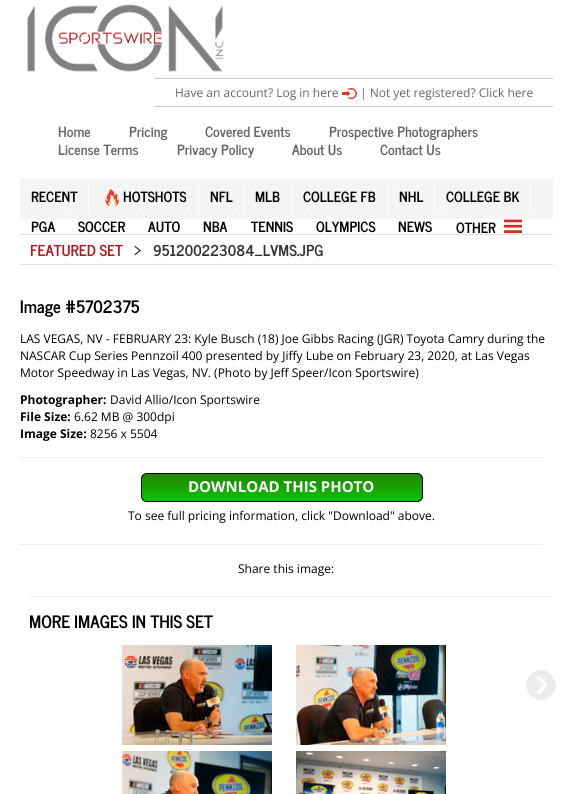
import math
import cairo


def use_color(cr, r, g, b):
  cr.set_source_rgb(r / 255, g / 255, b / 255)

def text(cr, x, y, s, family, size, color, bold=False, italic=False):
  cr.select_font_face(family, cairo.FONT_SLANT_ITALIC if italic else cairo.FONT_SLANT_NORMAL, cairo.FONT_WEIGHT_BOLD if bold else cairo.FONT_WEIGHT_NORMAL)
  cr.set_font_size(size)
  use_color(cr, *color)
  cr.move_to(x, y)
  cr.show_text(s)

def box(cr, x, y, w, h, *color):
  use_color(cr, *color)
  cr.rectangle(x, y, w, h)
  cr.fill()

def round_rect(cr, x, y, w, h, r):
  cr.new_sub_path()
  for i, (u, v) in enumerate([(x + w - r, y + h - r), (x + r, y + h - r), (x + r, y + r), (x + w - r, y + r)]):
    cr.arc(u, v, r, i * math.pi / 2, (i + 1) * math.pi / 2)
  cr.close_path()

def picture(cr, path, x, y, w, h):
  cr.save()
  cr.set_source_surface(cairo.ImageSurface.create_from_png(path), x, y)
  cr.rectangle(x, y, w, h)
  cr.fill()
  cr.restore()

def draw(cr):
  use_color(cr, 255, 255, 255)
  cr.paint()
  picture(cr, "img_01.png", 27, 4, 197, 68)
  box(cr, 155, 78, 398, 1, 197, 197, 197)
  box(cr, 155, 106, 398, 1, 197, 197, 197)
  picture(cr, "img_02.png", 342, 87, 15, 13)
  box(cr, 20, 178, 533, 41, 244, 244, 244)
  box(cr, 88, 184, 1, 30, 255, 255, 255)
  box(cr, 198, 184, 1, 30, 255, 255, 255)
  picture(cr, "img_03.png", 105, 189, 14, 17)
  box(cr, 243, 184, 1, 30, 255, 255, 255)
  box(cr, 291, 184, 1, 30, 255, 255, 255)
  box(cr, 387, 184, 1, 30, 255, 255, 255)
  box(cr, 434, 184, 1, 30, 255, 255, 255)
  box(cr, 530, 184, 1, 30, 255, 255, 255)
  box(cr, 20, 234, 533, 1, 223, 223, 223)
  box(cr, 66, 214, 1, 21, 255, 255, 255)
  box(cr, 136, 214, 1, 21, 255, 255, 255)
  box(cr, 191, 214, 1, 21, 255, 255, 255)
  box(cr, 239, 214, 1, 21, 255, 255, 255)
  box(cr, 304, 214, 1, 21, 255, 255, 255)
  box(cr, 386, 214, 1, 21, 255, 255, 255)
  box(cr, 444, 214, 1, 21, 255, 255, 255)
  box(cr, 533, 214, 1, 21, 255, 255, 255)
  picture(cr, "img_04.png", 504, 219, 18, 15)
  box(cr, 20, 264, 533, 1, 223, 223, 223)
  box(cr, 20, 457, 523, 1, 239, 239, 239)
  box(cr, 20, 544, 523, 1, 239, 239, 239)
  picture(cr, "img_05.png", 141, 474, 282, 28)
  round_rect(cr, 141.5, 473.5, 281, 28, 5.5)
  use_color(cr, 0, 0, 0)
  cr.set_line_width(1)
  cr.stroke()
  box(cr, 29, 596, 524, 1, 239, 239, 239)
  picture(cr, "img_06.png", 122, 645, 150, 100)
  picture(cr, "img_07.png", 296, 645, 150, 100)
  picture(cr, "img_08.png", 122, 751, 150, 43)
  picture(cr, "img_09.png", 296, 751, 150, 43)
  picture(cr, "img_10.png", 526, 670, 30, 30)
  text(cr, 175, 97, "Have an account? Log in here", "Open Sans", 12, (102, 102, 102))
  text(cr, 360, 97, "| Not yet registered? Click here", "Open Sans", 12, (102, 102, 102))
  text(cr, 58, 137, "Home", "News Cycle", 14, (102, 102, 102), bold=True)
  text(cr, 129, 137, "Pricing", "News Cycle", 14, (102, 102, 102), bold=True)
  text(cr, 205, 137, "Covered Events", "News Cycle", 14, (102, 102, 102), bold=True)
  text(cr, 329, 137, "Prospective Photographers", "News Cycle", 14, (102, 102, 102), bold=True)
  text(cr, 58, 155, "License Terms", "News Cycle", 14, (102, 102, 102), bold=True)
  text(cr, 177, 155, "Privacy Policy", "News Cycle", 14, (102, 102, 102), bold=True)
  text(cr, 292, 155, "About Us", "News Cycle", 14, (102, 102, 102), bold=True)
  text(cr, 380, 155, "Contact Us", "News Cycle", 14, (102, 102, 102), bold=True)
  text(cr, 31, 202, "RECENT", "News Cycle", 14, (0, 0, 0), bold=True)
  text(cr, 123, 202, "HOTSHOTS", "News Cycle", 14, (0, 0, 0), bold=True)
  text(cr, 210, 202, "NFL", "News Cycle", 14, (0, 0, 0), bold=True)
  text(cr, 255, 202, "MLB", "News Cycle", 14, (0, 0, 0), bold=True)
  text(cr, 303, 202, "COLLEGE FB", "News Cycle", 14, (0, 0, 0), bold=True)
  text(cr, 399, 202, "NHL", "News Cycle", 14, (0, 0, 0), bold=True)
  text(cr, 446, 202, "COLLEGE BK", "News Cycle", 14, (0, 0, 0), bold=True)
  text(cr, 31, 232, "PGA", "News Cycle", 14, (0, 0, 0), bold=True)
  text(cr, 78, 232, "SOCCER", "News Cycle", 14, (0, 0, 0), bold=True)
  text(cr, 148, 232, "AUTO", "News Cycle", 14, (0, 0, 0), bold=True)
  text(cr, 203, 232, "NBA", "News Cycle", 14, (0, 0, 0), bold=True)
  text(cr, 251, 232, "TENNIS", "News Cycle", 14, (0, 0, 0), bold=True)
  text(cr, 316, 232, "OLYMPICS", "News Cycle", 14, (0, 0, 0), bold=True)
  text(cr, 398, 232, "NEWS", "News Cycle", 14, (0, 0, 0), bold=True)
  text(cr, 456, 233, "OTHER", "News Cycle", 14, (0, 0, 0), bold=True)
  text(cr, 30, 256, "FEATURED SET", "News Cycle", 15, (167, 31, 35), bold=True)
  text(cr, 134, 256, ">", "News Cycle", 15, (51, 51, 51), bold=True)
  text(cr, 153, 256, "951200223084_LVMS.JPG", "News Cycle", 15, (51, 51, 51), bold=True)
  text(cr, 20, 313, "Image #5702375", "News Cycle", 17, (0, 0, 0), bold=True)
  text(cr, 20, 343, "LAS VEGAS, NV - FEBRUARY 23: Kyle Busch (18) Joe Gibbs Racing (JGR) Toyota Camry during the", "Open Sans", 12, (0, 0, 0))
  text(cr, 20, 360, "NASCAR Cup Series Pennzoil 400 presented by Jiffy Lube on February 23, 2020, at Las Vegas", "Open Sans", 12, (0, 0, 0))
  text(cr, 20, 377, "Motor Speedway in Las Vegas, NV. (Photo by Jeff Speer/Icon Sportswire)", "Open Sans", 12, (0, 0, 0))
  text(cr, 20, 404, "Photographer:", "Open Sans", 12, (0, 0, 0), bold=True)
  text(cr, 110, 404, "David Allio/Icon Sportswire", "Open Sans", 12, (0, 0, 0))
  text(cr, 20, 421, "File Size:", "Open Sans", 12, (0, 0, 0), bold=True)
  text(cr, 74, 421, "6.62 MB @ 300dpi", "Open Sans", 12, (0, 0, 0))
  text(cr, 20, 438, "Image Size:", "Open Sans", 12, (0, 0, 0), bold=True)
  text(cr, 90, 438, "8256 x 5504", "Open Sans", 12, (0, 0, 0))
  text(cr, 188, 492, "DOWNLOAD THIS PHOTO", "Open Sans", 15, (255, 255, 255), bold=True)
  text(cr, 128, 520, "To see full pricing information, click \"Download\" above.", "Open Sans", 12, (0, 0, 0))
  text(cr, 238, 573, "Share this image:", "Open Sans", 12, (0, 0, 0))
  text(cr, 29, 628, "MORE IMAGES IN THIS SET", "News Cycle", 17, (0, 0, 0), bold=True)


surface = cairo.ImageSurface(cairo.FORMAT_RGB24, 573, 794)
cr = cairo.Context(surface)
options = cairo.FontOptions()
options.set_hint_metrics(cairo.HINT_METRICS_OFF)
options.set_hint_style(cairo.HINT_STYLE_NONE)
cr.set_font_options(options)
cr.set_miter_limit(4)
draw(cr)
surface.write_to_png("out.png")
